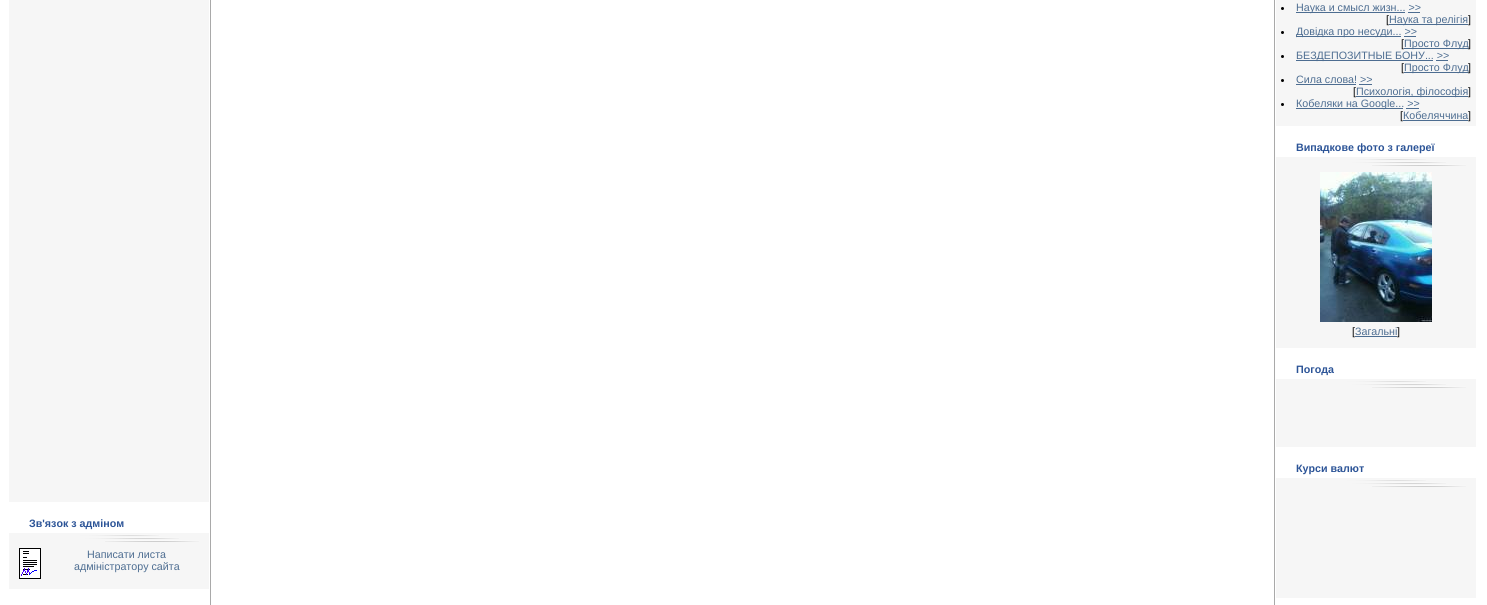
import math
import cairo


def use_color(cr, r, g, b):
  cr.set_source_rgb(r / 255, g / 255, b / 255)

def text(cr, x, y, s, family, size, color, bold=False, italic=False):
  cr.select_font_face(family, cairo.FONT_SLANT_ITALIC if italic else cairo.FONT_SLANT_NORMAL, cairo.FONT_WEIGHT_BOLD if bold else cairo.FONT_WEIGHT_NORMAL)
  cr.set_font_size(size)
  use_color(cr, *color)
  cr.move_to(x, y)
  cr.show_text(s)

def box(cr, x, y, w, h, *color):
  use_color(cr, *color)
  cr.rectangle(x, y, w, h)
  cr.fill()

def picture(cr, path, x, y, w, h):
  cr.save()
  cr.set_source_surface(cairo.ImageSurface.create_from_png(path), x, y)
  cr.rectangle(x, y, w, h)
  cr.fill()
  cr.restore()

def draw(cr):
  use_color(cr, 255, 255, 255)
  cr.paint()
  box(cr, 1274, 0, 1, 605, 169, 169, 169)
  box(cr, 210, 0, 1, 605, 169, 169, 169)
  box(cr, 1276, 0, 200, 126, 246, 246, 246)
  use_color(cr, 0, 0, 0)
  cr.arc(1282.5, 8.5, 1.5, 0, 2 * math.pi)
  cr.fill()
  box(cr, 1296, 12, 109, 1, 77, 109, 145)
  box(cr, 1408, 12, 12, 1, 77, 109, 145)
  use_color(cr, 0, 0, 0)
  cr.arc(1282.5, 32.5, 1.5, 0, 2 * math.pi)
  cr.fill()
  box(cr, 1296, 36, 105, 1, 77, 109, 145)
  box(cr, 1404, 36, 12, 1, 77, 109, 145)
  box(cr, 1404, 48, 64, 1, 77, 109, 145)
  use_color(cr, 0, 0, 0)
  cr.arc(1282.5, 56.5, 1.5, 0, 2 * math.pi)
  cr.fill()
  box(cr, 1296, 60, 137, 1, 77, 109, 145)
  box(cr, 1436, 60, 12, 1, 77, 109, 145)
  box(cr, 1404, 72, 64, 1, 77, 109, 145)
  use_color(cr, 0, 0, 0)
  cr.arc(1282.5, 80.5, 1.5, 0, 2 * math.pi)
  cr.fill()
  box(cr, 1296, 84, 60, 1, 77, 109, 145)
  box(cr, 1359, 84, 13, 1, 77, 109, 145)
  use_color(cr, 0, 0, 0)
  cr.arc(1282.5, 104.5, 1.5, 0, 2 * math.pi)
  cr.fill()
  box(cr, 1296, 108, 107, 1, 77, 109, 145)
  box(cr, 1406, 108, 13, 1, 77, 109, 145)
  box(cr, 1403, 120, 65, 1, 77, 109, 145)
  picture(cr, "img_01.png", 1276, 157, 200, 10)
  box(cr, 1276, 167, 200, 181, 246, 246, 246)
  picture(cr, "img_02.png", 1320, 172, 112, 150)
  box(cr, 1355, 336, 42, 1, 77, 109, 145)
  picture(cr, "img_01.png", 1276, 379, 200, 10)
  box(cr, 1276, 389, 200, 58, 246, 246, 246)
  picture(cr, "img_01.png", 1276, 478, 200, 10)
  box(cr, 1276, 488, 200, 110, 246, 246, 246)
  box(cr, 9, 0, 200, 502, 246, 246, 246)
  picture(cr, "img_01.png", 9, 533, 200, 10)
  box(cr, 9, 543, 200, 46, 246, 246, 246)
  picture(cr, "img_03.png", 19, 548, 22, 31)
  text(cr, 1296, 11, "Наука и смысл жизн... >>", "Liberation Sans", 10.7, (77, 109, 145))
  text(cr, 1386, 23, "[", "Liberation Sans", 10.7, (0, 0, 0))
  box(cr, 1389, 24, 79, 1, 77, 109, 145)
  text(cr, 1389, 23, "Наука та релігія", "Liberation Sans", 10.7, (77, 109, 145))
  text(cr, 1468, 23, "]", "Liberation Sans", 10.7, (0, 0, 0))
  text(cr, 1296, 35, "Довідка про несуди... >>", "Liberation Sans", 10.7, (77, 109, 145))
  text(cr, 1401, 47, "[", "Liberation Sans", 10.7, (0, 0, 0))
  text(cr, 1404, 47, "Просто Флуд", "Liberation Sans", 10.7, (77, 109, 145))
  text(cr, 1468, 47, "]", "Liberation Sans", 10.7, (0, 0, 0))
  text(cr, 1296, 59, "БЕЗДЕПОЗИТНЫЕ БОНУ... >>", "Liberation Sans", 10.7, (77, 109, 145))
  text(cr, 1401, 71, "[", "Liberation Sans", 10.7, (0, 0, 0))
  text(cr, 1404, 71, "Просто Флуд", "Liberation Sans", 10.7, (77, 109, 145))
  text(cr, 1468, 71, "]", "Liberation Sans", 10.7, (0, 0, 0))
  text(cr, 1296, 83, "Сила слова! >>", "Liberation Sans", 10.7, (77, 109, 145))
  text(cr, 1353, 95, "[", "Liberation Sans", 10.7, (0, 0, 0))
  box(cr, 1356, 96, 112, 1, 77, 109, 145)
  text(cr, 1356, 95, "Психологія, філософія", "Liberation Sans", 10.7, (77, 109, 145))
  text(cr, 1468, 95, "]", "Liberation Sans", 10.7, (0, 0, 0))
  text(cr, 1296, 107, "Кобеляки на Google... >>", "Liberation Sans", 10.7, (77, 109, 145))
  text(cr, 1400, 119, "[", "Liberation Sans", 10.7, (0, 0, 0))
  text(cr, 1403, 119, "Кобеляччина", "Liberation Sans", 10.7, (77, 109, 145))
  text(cr, 1468, 119, "]", "Liberation Sans", 10.7, (0, 0, 0))
  text(cr, 1296, 151, "Випадкове фото з галереї", "Liberation Sans", 10.7, (44, 84, 151), bold=True)
  text(cr, 1352, 335, "[", "Liberation Sans", 10.7, (0, 0, 0))
  text(cr, 1355, 335, "Загальні", "Liberation Sans", 10.7, (77, 109, 145))
  text(cr, 1397, 335, "]", "Liberation Sans", 10.7, (0, 0, 0))
  text(cr, 1296, 373, "Погода", "Liberation Sans", 10.7, (44, 84, 151), bold=True)
  text(cr, 1296, 472, "Курси валют", "Liberation Sans", 10.7, (44, 84, 151), bold=True)
  text(cr, 29, 527, "Зв'язок з адміном", "Liberation Sans", 10.7, (44, 84, 151), bold=True)
  text(cr, 87, 558, "Написати листа", "Liberation Sans", 10.7, (77, 109, 145))
  text(cr, 74, 570, "адміністратору сайта", "Liberation Sans", 10.7, (77, 109, 145))


surface = cairo.ImageSurface(cairo.FORMAT_RGB24, 1487, 605)
cr = cairo.Context(surface)
options = cairo.FontOptions()
options.set_hint_metrics(cairo.HINT_METRICS_OFF)
options.set_hint_style(cairo.HINT_STYLE_NONE)
cr.set_font_options(options)
cr.set_miter_limit(4)
draw(cr)
surface.write_to_png("out.png")
